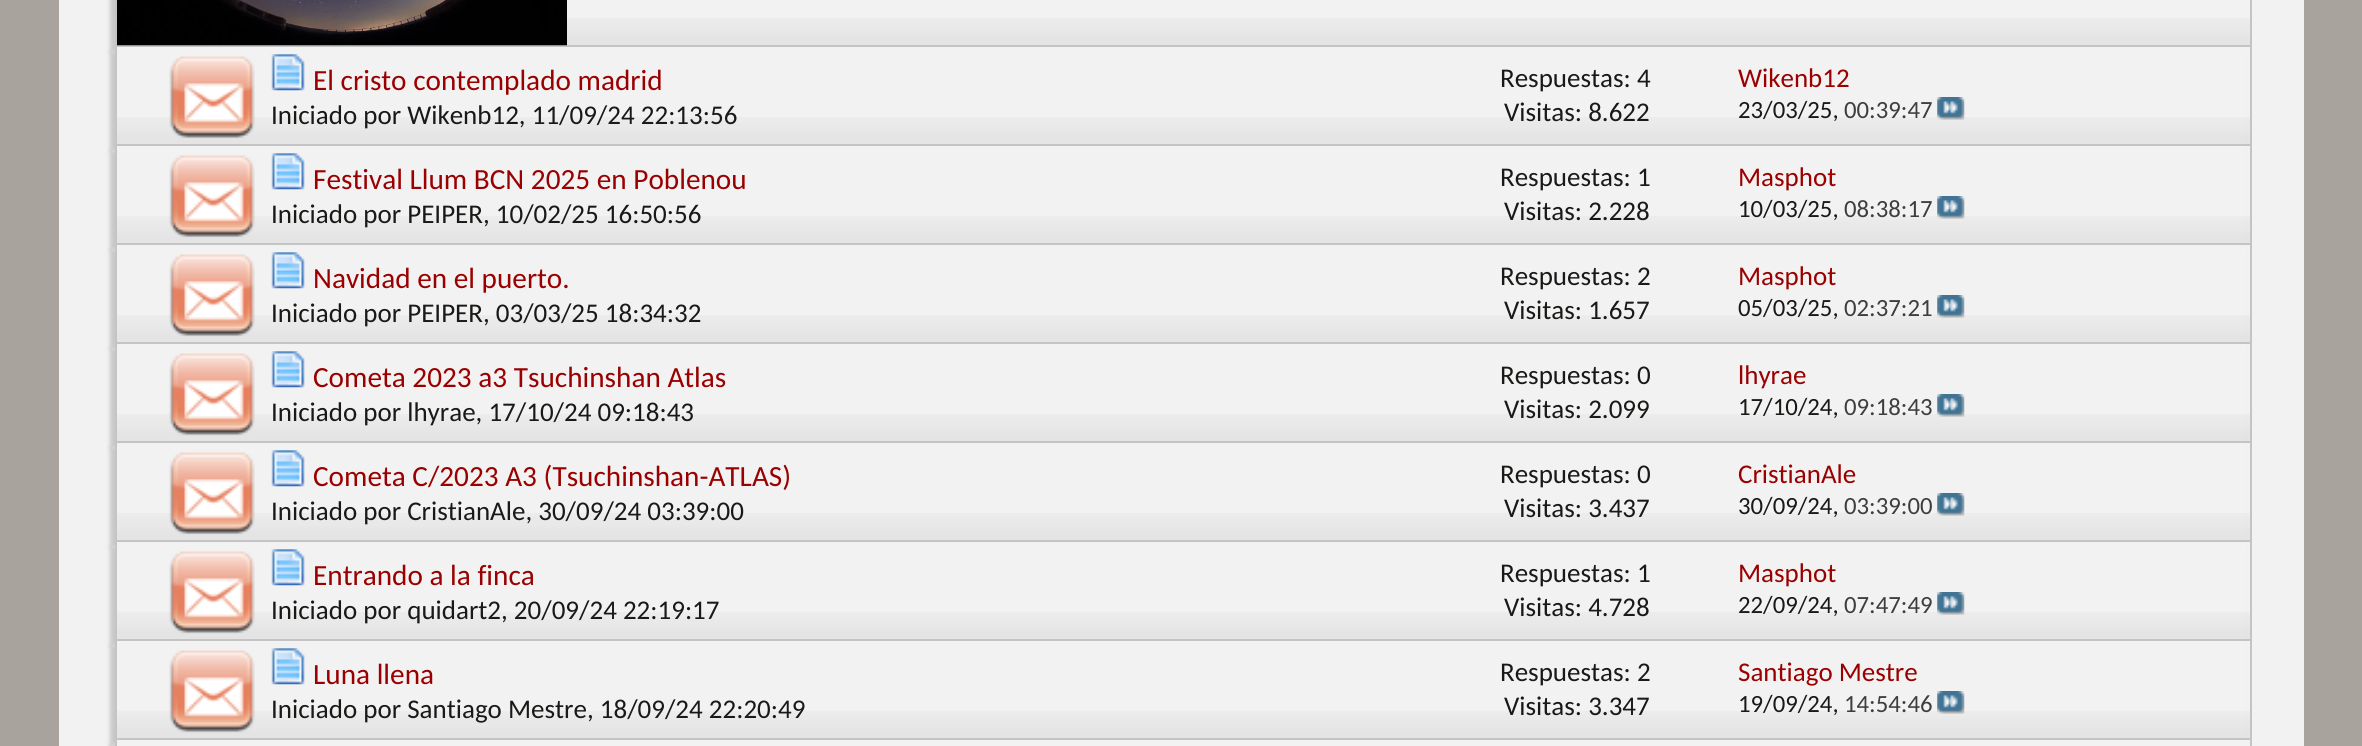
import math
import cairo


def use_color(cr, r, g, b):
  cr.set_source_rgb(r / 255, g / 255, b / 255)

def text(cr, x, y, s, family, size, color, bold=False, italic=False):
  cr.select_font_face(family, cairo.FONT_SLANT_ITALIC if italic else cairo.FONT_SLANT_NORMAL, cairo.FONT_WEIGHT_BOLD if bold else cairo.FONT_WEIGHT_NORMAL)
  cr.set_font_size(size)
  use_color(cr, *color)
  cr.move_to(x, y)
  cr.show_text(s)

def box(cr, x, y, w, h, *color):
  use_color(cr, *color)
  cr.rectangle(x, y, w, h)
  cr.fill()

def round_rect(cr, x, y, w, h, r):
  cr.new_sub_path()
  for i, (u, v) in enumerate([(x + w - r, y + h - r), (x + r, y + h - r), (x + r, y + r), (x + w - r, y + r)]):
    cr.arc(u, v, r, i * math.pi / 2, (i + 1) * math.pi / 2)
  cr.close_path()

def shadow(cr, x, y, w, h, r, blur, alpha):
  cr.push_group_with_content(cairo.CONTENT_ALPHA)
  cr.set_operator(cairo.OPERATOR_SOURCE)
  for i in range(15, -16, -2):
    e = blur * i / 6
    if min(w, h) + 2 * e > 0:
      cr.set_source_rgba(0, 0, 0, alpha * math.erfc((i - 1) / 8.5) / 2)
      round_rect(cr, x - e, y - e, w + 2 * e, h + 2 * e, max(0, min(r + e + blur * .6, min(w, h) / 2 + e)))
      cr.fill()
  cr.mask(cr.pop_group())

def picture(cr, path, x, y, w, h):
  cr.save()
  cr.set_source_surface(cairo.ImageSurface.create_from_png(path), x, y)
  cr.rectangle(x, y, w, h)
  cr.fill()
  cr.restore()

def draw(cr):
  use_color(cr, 168, 163, 157)
  cr.paint()
  box(cr, 59, 0, 2245, 746, 242, 242, 242)
  cr.save()
  cr.rectangle(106, 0, 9, 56)
  cr.clip()
  use_color(cr, 200, 200, 200)
  shadow(cr, 110, -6, 2133, 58, 0, 2, 1)
  cr.restore()
  picture(cr, "img_01.png", 567, 18, 1683, 27)
  box(cr, 2250, 0, 2, 740, 196, 196, 196)
  box(cr, 115, 45, 2137, 2, 196, 196, 196)
  box(cr, 115, 0, 2, 47, 196, 196, 196)
  picture(cr, "img_02.png", 117, 0, 450, 46)
  use_color(cr, 200, 200, 200)
  shadow(cr, 110, 52, 2133, 99, 0, 2, 1)
  box(cr, 117, 47, 2129, 97, 242, 242, 242)
  picture(cr, "img_03.png", 117, 117, 2133, 27)
  box(cr, 115, 144, 2137, 2, 196, 196, 196)
  box(cr, 115, 47, 2, 99, 196, 196, 196)
  picture(cr, "img_04.png", 169, 56, 86, 83)
  picture(cr, "img_05.png", 271, 54, 34, 37)
  box(cr, 1440, 117, 254, 27, 242, 242, 242)
  picture(cr, "img_06.png", 1440, 117, 254, 27)
  picture(cr, "img_07.png", 1937, 97, 28, 23)
  use_color(cr, 200, 200, 200)
  shadow(cr, 110, 151, 2133, 99, 0, 2, 1)
  box(cr, 117, 146, 2129, 97, 242, 242, 242)
  picture(cr, "img_08.png", 117, 216, 2133, 27)
  box(cr, 115, 243, 2137, 2, 196, 196, 196)
  box(cr, 115, 146, 2, 99, 196, 196, 196)
  picture(cr, "img_09.png", 169, 155, 86, 83)
  picture(cr, "img_05.png", 271, 153, 34, 37)
  box(cr, 1440, 216, 254, 27, 242, 242, 242)
  picture(cr, "img_10.png", 1440, 216, 254, 27)
  picture(cr, "img_11.png", 1937, 196, 28, 23)
  use_color(cr, 200, 200, 200)
  shadow(cr, 110, 250, 2133, 99, 0, 2, 1)
  box(cr, 117, 245, 2129, 97, 242, 242, 242)
  picture(cr, "img_12.png", 117, 315, 2133, 27)
  box(cr, 115, 342, 2137, 2, 196, 196, 196)
  box(cr, 115, 245, 2, 99, 196, 196, 196)
  picture(cr, "img_13.png", 169, 254, 86, 83)
  picture(cr, "img_05.png", 271, 252, 34, 37)
  box(cr, 1440, 315, 254, 27, 242, 242, 242)
  picture(cr, "img_14.png", 1440, 315, 254, 27)
  picture(cr, "img_07.png", 1937, 295, 28, 23)
  use_color(cr, 200, 200, 200)
  shadow(cr, 110, 349, 2133, 99, 0, 2, 1)
  box(cr, 117, 344, 2129, 97, 242, 242, 242)
  picture(cr, "img_03.png", 117, 414, 2133, 27)
  box(cr, 115, 441, 2137, 2, 196, 196, 196)
  box(cr, 115, 344, 2, 99, 196, 196, 196)
  picture(cr, "img_04.png", 169, 353, 86, 83)
  picture(cr, "img_05.png", 271, 351, 34, 37)
  box(cr, 1440, 414, 254, 27, 242, 242, 242)
  picture(cr, "img_06.png", 1440, 414, 254, 27)
  picture(cr, "img_07.png", 1937, 394, 28, 23)
  use_color(cr, 200, 200, 200)
  shadow(cr, 110, 448, 2133, 99, 0, 2, 1)
  box(cr, 117, 443, 2129, 97, 242, 242, 242)
  picture(cr, "img_08.png", 117, 513, 2133, 27)
  box(cr, 115, 540, 2137, 2, 196, 196, 196)
  box(cr, 115, 443, 2, 99, 196, 196, 196)
  picture(cr, "img_09.png", 169, 452, 86, 83)
  picture(cr, "img_05.png", 271, 450, 34, 37)
  box(cr, 1440, 513, 254, 27, 242, 242, 242)
  picture(cr, "img_10.png", 1440, 513, 254, 27)
  picture(cr, "img_11.png", 1937, 493, 28, 23)
  use_color(cr, 200, 200, 200)
  shadow(cr, 110, 547, 2133, 99, 0, 2, 1)
  box(cr, 117, 542, 2129, 97, 242, 242, 242)
  picture(cr, "img_03.png", 117, 612, 2133, 27)
  box(cr, 115, 639, 2137, 2, 196, 196, 196)
  box(cr, 115, 542, 2, 99, 196, 196, 196)
  picture(cr, "img_04.png", 169, 551, 86, 83)
  picture(cr, "img_05.png", 271, 549, 34, 37)
  box(cr, 1440, 612, 254, 27, 242, 242, 242)
  picture(cr, "img_06.png", 1440, 612, 254, 27)
  picture(cr, "img_07.png", 1937, 592, 28, 23)
  use_color(cr, 200, 200, 200)
  shadow(cr, 110, 646, 2133, 99, 0, 2, 1)
  box(cr, 117, 641, 2129, 97, 242, 242, 242)
  picture(cr, "img_12.png", 117, 711, 2133, 27)
  box(cr, 115, 738, 2137, 2, 196, 196, 196)
  box(cr, 115, 641, 2, 99, 196, 196, 196)
  picture(cr, "img_13.png", 169, 650, 86, 83)
  picture(cr, "img_05.png", 271, 648, 34, 37)
  box(cr, 1440, 711, 254, 27, 242, 242, 242)
  picture(cr, "img_14.png", 1440, 711, 254, 27)
  picture(cr, "img_07.png", 1937, 691, 28, 23)
  use_color(cr, 200, 200, 200)
  shadow(cr, 110, 745, 2133, 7, 0, 2, 1)
  box(cr, 115, 740, 2137, 6, 242, 242, 242)
  box(cr, 2250, 740, 2, 6, 196, 196, 196)
  box(cr, 115, 740, 2, 6, 196, 196, 196)
  text(cr, 313, 90, "El cristo contemplado madrid", "Carlito", 29.25, (154, 0, 0))
  text(cr, 271, 124, "Iniciado por Wikenb12, 11/09/24 22:13:56", "Carlito", 27, (26, 25, 23))
  text(cr, 1500, 87, "Respuestas: 4", "Carlito", 27, (26, 25, 23))
  text(cr, 1504, 121, "Visitas: 8.622", "Carlito", 27, (26, 25, 23))
  text(cr, 1738, 87, "Wikenb12", "Carlito", 27, (154, 0, 0))
  text(cr, 1738, 118, "23/03/25,", "Carlito", 24.75, (26, 25, 23))
  text(cr, 1844, 118, "00:39:47", "Carlito", 24.75, (62, 62, 62))
  text(cr, 313, 189, "Festival Llum BCN 2025 en Poblenou", "Carlito", 29.25, (154, 0, 0))
  text(cr, 271, 223, "Iniciado por PEIPER, 10/02/25 16:50:56", "Carlito", 27, (26, 25, 23))
  text(cr, 1500, 186, "Respuestas: 1", "Carlito", 27, (26, 25, 23))
  text(cr, 1504, 220, "Visitas: 2.228", "Carlito", 27, (26, 25, 23))
  text(cr, 1738, 186, "Masphot", "Carlito", 27, (154, 0, 0))
  text(cr, 1738, 217, "10/03/25,", "Carlito", 24.75, (26, 25, 23))
  text(cr, 1844, 217, "08:38:17", "Carlito", 24.75, (62, 62, 62))
  text(cr, 313, 288, "Navidad en el puerto.", "Carlito", 29.25, (154, 0, 0))
  text(cr, 271, 322, "Iniciado por PEIPER, 03/03/25 18:34:32", "Carlito", 27, (26, 25, 23))
  text(cr, 1500, 285, "Respuestas: 2", "Carlito", 27, (26, 25, 23))
  text(cr, 1504, 319, "Visitas: 1.657", "Carlito", 27, (26, 25, 23))
  text(cr, 1738, 285, "Masphot", "Carlito", 27, (154, 0, 0))
  text(cr, 1738, 316, "05/03/25,", "Carlito", 24.75, (26, 25, 23))
  text(cr, 1844, 316, "02:37:21", "Carlito", 24.75, (62, 62, 62))
  text(cr, 313, 387, "Cometa 2023 a3 Tsuchinshan Atlas", "Carlito", 29.25, (154, 0, 0))
  text(cr, 271, 421, "Iniciado por lhyrae, 17/10/24 09:18:43", "Carlito", 27, (26, 25, 23))
  text(cr, 1500, 384, "Respuestas: 0", "Carlito", 27, (26, 25, 23))
  text(cr, 1504, 418, "Visitas: 2.099", "Carlito", 27, (26, 25, 23))
  text(cr, 1738, 384, "lhyrae", "Carlito", 27, (154, 0, 0))
  text(cr, 1738, 415, "17/10/24,", "Carlito", 24.75, (26, 25, 23))
  text(cr, 1844, 415, "09:18:43", "Carlito", 24.75, (62, 62, 62))
  text(cr, 313, 486, "Cometa C/2023 A3 (Tsuchinshan-ATLAS)", "Carlito", 29.25, (154, 0, 0))
  text(cr, 271, 520, "Iniciado por CristianAle, 30/09/24 03:39:00", "Carlito", 27, (26, 25, 23))
  text(cr, 1500, 483, "Respuestas: 0", "Carlito", 27, (26, 25, 23))
  text(cr, 1504, 517, "Visitas: 3.437", "Carlito", 27, (26, 25, 23))
  text(cr, 1738, 483, "CristianAle", "Carlito", 27, (154, 0, 0))
  text(cr, 1738, 514, "30/09/24,", "Carlito", 24.75, (26, 25, 23))
  text(cr, 1844, 514, "03:39:00", "Carlito", 24.75, (62, 62, 62))
  text(cr, 313, 585, "Entrando a la finca", "Carlito", 29.25, (154, 0, 0))
  text(cr, 271, 619, "Iniciado por quidart2, 20/09/24 22:19:17", "Carlito", 27, (26, 25, 23))
  text(cr, 1500, 582, "Respuestas: 1", "Carlito", 27, (26, 25, 23))
  text(cr, 1504, 616, "Visitas: 4.728", "Carlito", 27, (26, 25, 23))
  text(cr, 1738, 582, "Masphot", "Carlito", 27, (154, 0, 0))
  text(cr, 1738, 613, "22/09/24,", "Carlito", 24.75, (26, 25, 23))
  text(cr, 1844, 613, "07:47:49", "Carlito", 24.75, (62, 62, 62))
  text(cr, 313, 684, "Luna llena", "Carlito", 29.25, (154, 0, 0))
  text(cr, 271, 718, "Iniciado por Santiago Mestre, 18/09/24 22:20:49", "Carlito", 27, (26, 25, 23))
  text(cr, 1500, 681, "Respuestas: 2", "Carlito", 27, (26, 25, 23))
  text(cr, 1504, 715, "Visitas: 3.347", "Carlito", 27, (26, 25, 23))
  text(cr, 1738, 681, "Santiago Mestre", "Carlito", 27, (154, 0, 0))
  text(cr, 1738, 712, "19/09/24,", "Carlito", 24.75, (26, 25, 23))
  text(cr, 1844, 712, "14:54:46", "Carlito", 24.75, (62, 62, 62))


surface = cairo.ImageSurface(cairo.FORMAT_RGB24, 2362, 746)
cr = cairo.Context(surface)
options = cairo.FontOptions()
options.set_hint_metrics(cairo.HINT_METRICS_OFF)
options.set_hint_style(cairo.HINT_STYLE_NONE)
cr.set_font_options(options)
cr.set_miter_limit(4)
draw(cr)
surface.write_to_png("out.png")
